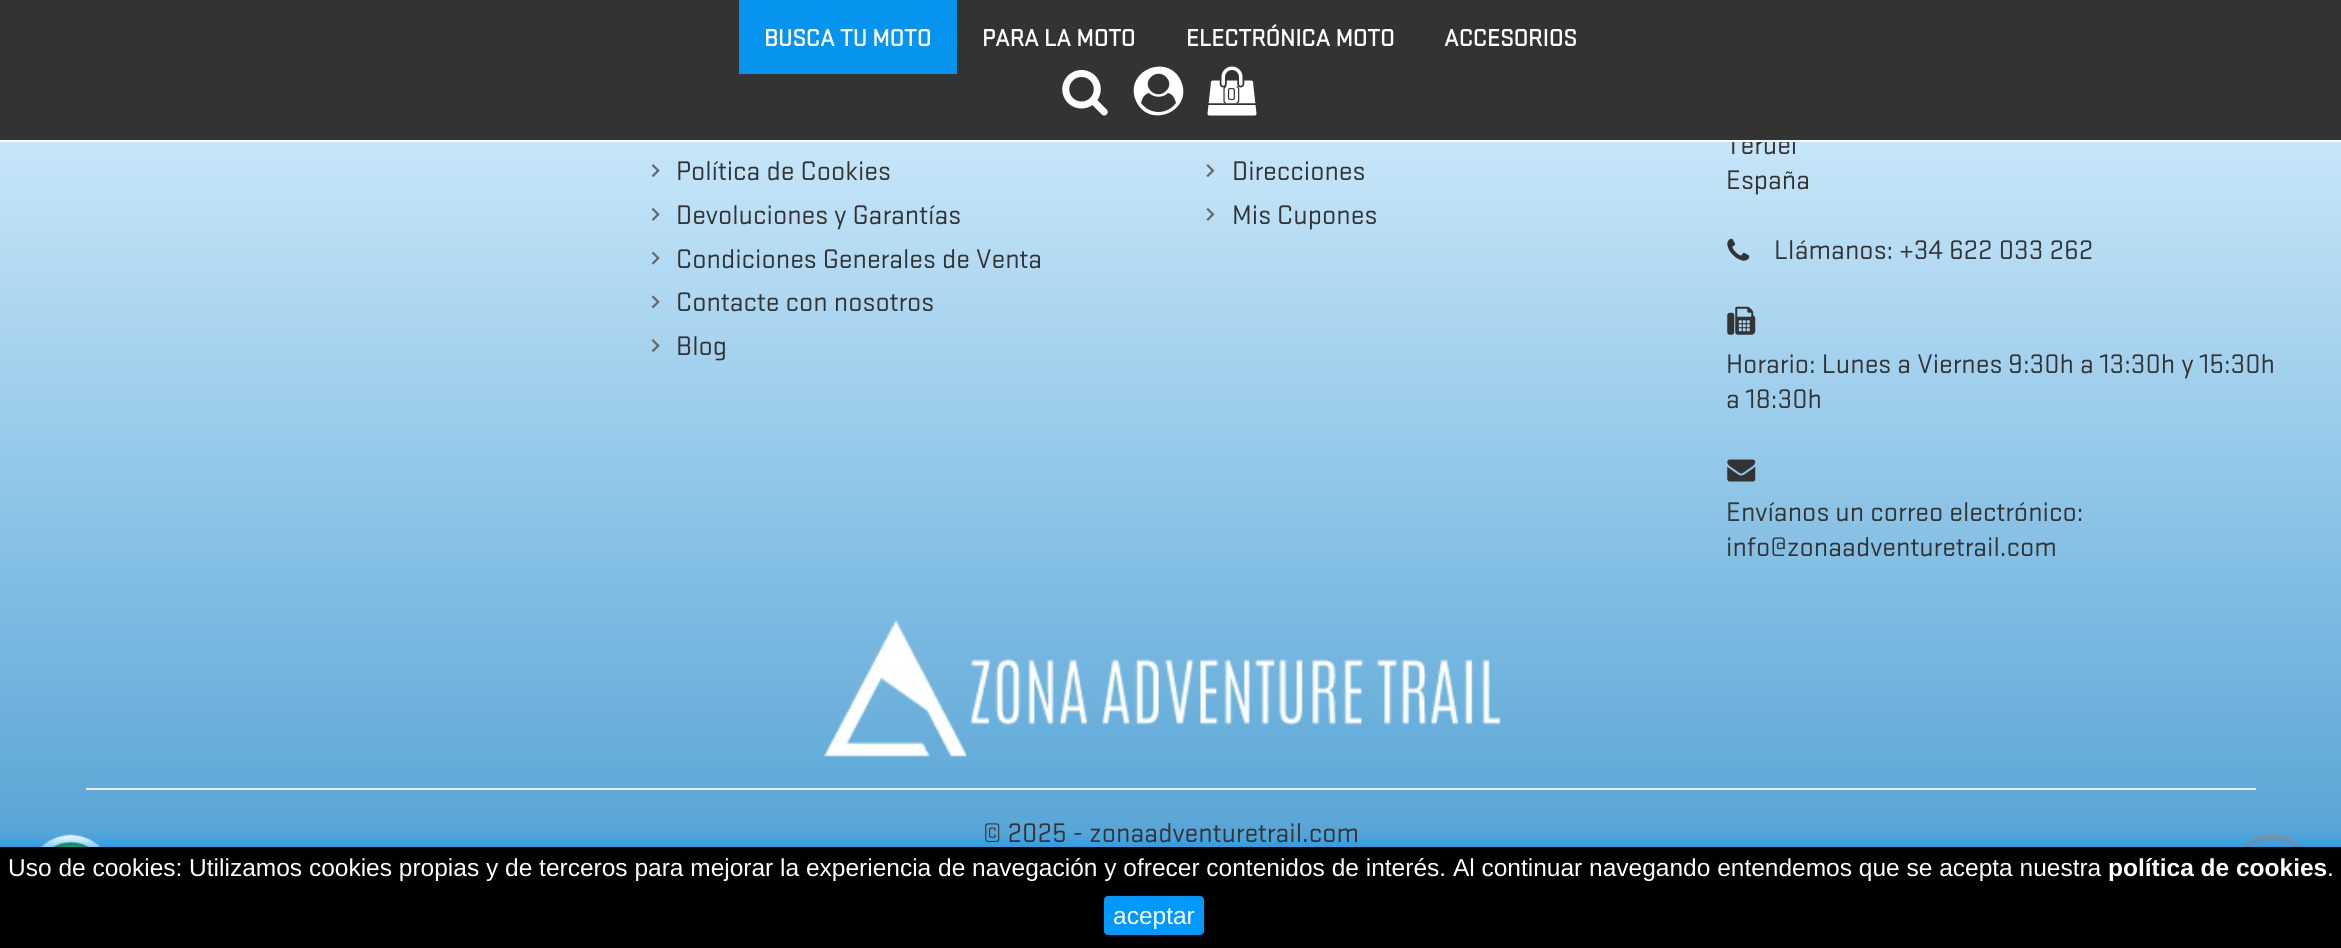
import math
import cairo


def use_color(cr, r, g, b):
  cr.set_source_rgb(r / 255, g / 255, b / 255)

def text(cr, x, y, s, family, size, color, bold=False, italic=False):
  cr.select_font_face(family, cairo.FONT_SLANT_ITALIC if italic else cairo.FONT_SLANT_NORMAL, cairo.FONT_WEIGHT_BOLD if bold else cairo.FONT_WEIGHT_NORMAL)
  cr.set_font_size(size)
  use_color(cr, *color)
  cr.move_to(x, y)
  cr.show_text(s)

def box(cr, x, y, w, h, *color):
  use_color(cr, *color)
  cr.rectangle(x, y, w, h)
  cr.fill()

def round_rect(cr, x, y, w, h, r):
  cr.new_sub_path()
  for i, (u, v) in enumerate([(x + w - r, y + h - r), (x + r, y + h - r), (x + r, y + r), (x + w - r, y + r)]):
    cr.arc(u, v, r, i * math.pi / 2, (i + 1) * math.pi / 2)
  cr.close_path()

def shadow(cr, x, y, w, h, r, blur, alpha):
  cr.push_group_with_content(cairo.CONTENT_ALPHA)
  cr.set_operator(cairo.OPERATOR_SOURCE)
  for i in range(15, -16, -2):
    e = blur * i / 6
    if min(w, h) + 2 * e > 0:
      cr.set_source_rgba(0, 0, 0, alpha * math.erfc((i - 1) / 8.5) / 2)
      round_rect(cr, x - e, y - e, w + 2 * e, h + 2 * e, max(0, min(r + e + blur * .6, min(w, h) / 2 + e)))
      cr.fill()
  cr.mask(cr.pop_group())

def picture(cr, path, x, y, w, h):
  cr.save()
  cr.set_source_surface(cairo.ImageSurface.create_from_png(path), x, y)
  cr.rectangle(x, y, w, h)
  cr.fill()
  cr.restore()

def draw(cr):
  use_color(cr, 255, 255, 255)
  cr.paint()
  box(cr, 0, 0, 2341, 140, 51, 51, 51)
  box(cr, 739, 0, 218, 74, 6, 148, 239)
  picture(cr, "img_01.png", 1062, 70, 46, 46)
  use_color(cr, 255, 255, 255)
  cr.new_path()
  cr.move_to(1176, 103)
  cr.curve_to(1175, 99, 1173, 94, 1168, 93)
  cr.curve_to(1163, 98, 1154, 98, 1149, 93)
  cr.curve_to(1144, 94, 1142, 99, 1141, 103)
  cr.curve_to(1150, 115, 1167, 115, 1176, 103)
  cr.close_path()
  cr.move_to(1166, 91)
  cr.curve_to(1176, 82, 1161, 67, 1151, 77)
  cr.curve_to(1141, 86, 1156, 101, 1166, 91)
  cr.close_path()
  cr.move_to(1181, 81)
  cr.curve_to(1194, 111, 1149, 130, 1136, 101)
  cr.curve_to(1123, 71, 1168, 52, 1181, 81)
  cr.close_path()
  cr.fill()
  picture(cr, "img_02.png", 1207, 66, 50, 50)
  gradient = cairo.LinearGradient(1171, 914, 1171, -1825)
  gradient.add_color_stop_rgba(0, 0.298, 0.62, 0.824, 1)
  gradient.add_color_stop_rgba(0.33, 0.859, 0.949, 1, 1)
  gradient.add_color_stop_rgba(0.66, 0.886, 0.957, 1, 1)
  gradient.add_color_stop_rgba(1, 1, 1, 1, 1)
  cr.set_source(gradient)
  cr.rectangle(0, 142, 2341, 705)
  cr.fill()
  picture(cr, "img_03.png", 651, 164, 9, 14)
  picture(cr, "img_04.png", 651, 207, 9, 14)
  picture(cr, "img_05.png", 651, 251, 9, 14)
  picture(cr, "img_06.png", 651, 295, 9, 14)
  picture(cr, "img_07.png", 651, 339, 9, 14)
  picture(cr, "img_08.png", 1206, 164, 9, 13)
  picture(cr, "img_09.png", 1206, 208, 9, 13)
  picture(cr, "img_10.png", 1727, 238, 23, 23)
  picture(cr, "img_11.png", 1727, 306, 29, 29)
  picture(cr, "img_12.png", 1727, 459, 29, 23)
  picture(cr, "img_13.png", 40, 834, 62, 13)
  picture(cr, "img_15.png", 2240, 834, 64, 13)
  use_color(cr, 0, 153, 255)
  shadow(cr, 0, 847, 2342, 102, 0, 9, 1)
  box(cr, 0, 847, 2341, 101, 0, 0, 0)
  use_color(cr, 0, 153, 255)
  round_rect(cr, 1104, 896, 100, 39, 4)
  cr.fill()
  picture(cr, "img_14.png", 823, 619, 678, 138)
  box(cr, 86, 788, 2170, 2, 235, 235, 235)
  text(cr, 764, 46, "BUSCA TU MOTO", "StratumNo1", 24.5, (255, 255, 255), bold=True)
  text(cr, 982, 46, "PARA LA MOTO", "StratumNo1", 24.5, (255, 255, 255), bold=True)
  text(cr, 1186, 46, "ELECTRÓNICA MOTO", "StratumNo1", 24.5, (255, 255, 255), bold=True)
  text(cr, 1444, 46, "ACCESORIOS", "StratumNo1", 24.5, (255, 255, 255), bold=True)
  text(cr, 1222, 100, "(0)", "StratumNo1", 18, (51, 51, 51))
  text(cr, 676, 180, "Política de Cookies", "StratumNo1", 28, (51, 51, 51))
  text(cr, 676, 224, "Devoluciones y Garantías", "StratumNo1", 28, (51, 51, 51))
  text(cr, 676, 268, "Condiciones Generales de Venta", "StratumNo1", 28, (51, 51, 51))
  text(cr, 676, 311, "Contacte con nosotros", "StratumNo1", 28, (51, 51, 51))
  text(cr, 676, 355, "Blog", "StratumNo1", 28, (51, 51, 51))
  text(cr, 1232, 180, "Direcciones", "StratumNo1", 28, (51, 51, 51))
  text(cr, 1232, 224, "Mis Cupones", "StratumNo1", 28, (51, 51, 51))
  text(cr, 1726, 154, "Teruel", "StratumNo1", 28, (51, 51, 51))
  box(cr, 1732, 140, 64, 2, 255, 255, 255)
  text(cr, 1726, 189, "España", "StratumNo1", 28, (51, 51, 51))
  text(cr, 1774, 259, "Llámanos: +34 622 033 262", "StratumNo1", 28, (51, 51, 51))
  text(cr, 1726, 373, "Horario: Lunes a Viernes 9:30h a 13:30h y 15:30h", "StratumNo1", 28, (51, 51, 51))
  text(cr, 1726, 408, "a 18:30h", "StratumNo1", 28, (51, 51, 51))
  text(cr, 1726, 521, "Envíanos un correo electrónico:", "StratumNo1", 28, (51, 51, 51))
  text(cr, 1726, 556, "info@zonaadventuretrail.com", "StratumNo1", 28, (51, 51, 51))
  text(cr, 8, 876, "Uso de cookies: Utilizamos cookies propias y de terceros para mejorar la experiencia de navegación y ofrecer contenidos de interés. Al continuar navegando entendemos que se acepta nuestra", "Liberation Sans", 24.5, (255, 255, 255))
  text(cr, 2108, 876, "política de cookies", "Liberation Sans", 24.5, (255, 255, 255), bold=True)
  text(cr, 2327, 876, ".", "Liberation Sans", 24.5, (255, 255, 255))
  text(cr, 1113, 924, "aceptar", "Liberation Sans", 24.5, (255, 255, 255))
  text(cr, 983, 842, "© 2025 - zonaadventuretrail.com", "StratumNo1", 28, (51, 51, 51))


surface = cairo.ImageSurface(cairo.FORMAT_RGB24, 2341, 948)
cr = cairo.Context(surface)
options = cairo.FontOptions()
options.set_hint_metrics(cairo.HINT_METRICS_OFF)
options.set_hint_style(cairo.HINT_STYLE_NONE)
cr.set_font_options(options)
cr.set_miter_limit(4)
draw(cr)
surface.write_to_png("out.png")
